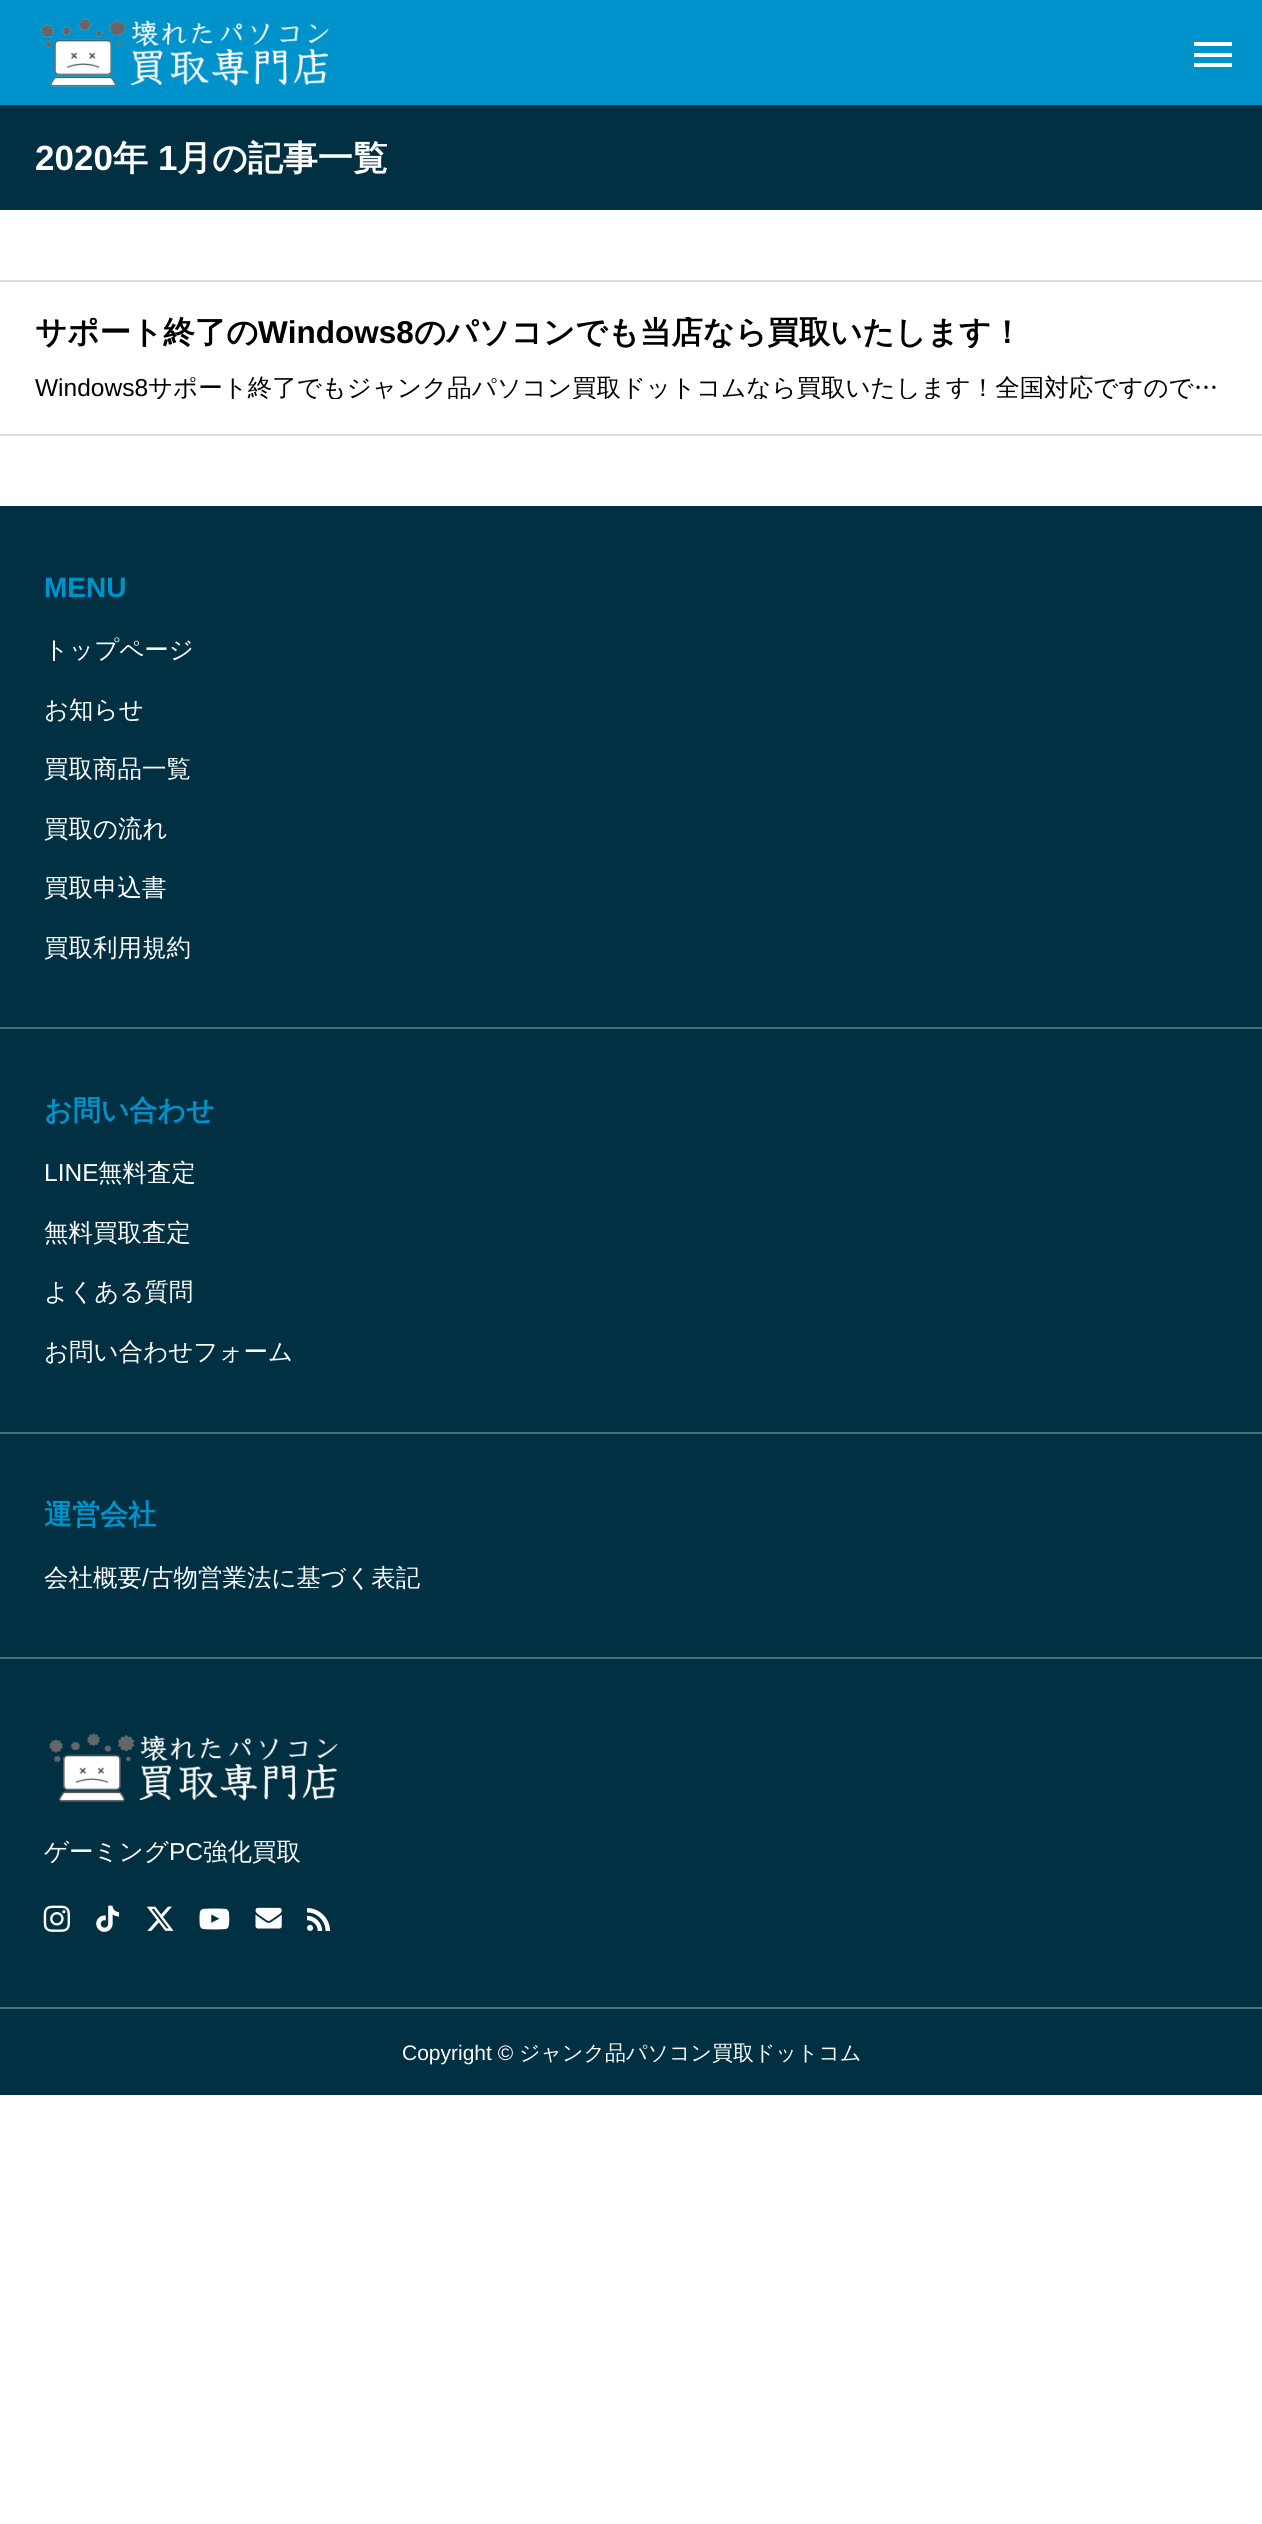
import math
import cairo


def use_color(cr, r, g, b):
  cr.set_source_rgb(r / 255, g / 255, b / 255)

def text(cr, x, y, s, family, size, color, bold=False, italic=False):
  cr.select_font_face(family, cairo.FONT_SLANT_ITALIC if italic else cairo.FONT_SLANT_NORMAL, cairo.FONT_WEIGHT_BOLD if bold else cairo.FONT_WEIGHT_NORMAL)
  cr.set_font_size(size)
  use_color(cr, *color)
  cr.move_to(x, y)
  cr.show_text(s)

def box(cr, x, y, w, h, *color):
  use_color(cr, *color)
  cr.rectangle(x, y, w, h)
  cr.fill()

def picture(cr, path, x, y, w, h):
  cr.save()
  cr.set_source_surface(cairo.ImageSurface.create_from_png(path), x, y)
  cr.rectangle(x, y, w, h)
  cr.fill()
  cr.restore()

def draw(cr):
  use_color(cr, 255, 255, 255)
  cr.paint()
  box(cr, 0, 0, 1262, 105, 0, 147, 203)
  picture(cr, "img_01.png", 40, 18, 289, 69)
  box(cr, 1194, 42, 38, 4, 255, 255, 255)
  box(cr, 1194, 53, 38, 4, 255, 255, 255)
  box(cr, 1194, 63, 38, 4, 255, 255, 255)
  box(cr, 0, 105, 1262, 105, 0, 48, 66)
  box(cr, 0, 280, 1262, 2, 221, 221, 221)
  box(cr, 0, 434, 1262, 2, 221, 221, 221)
  box(cr, 0, 506, 1262, 1589, 0, 48, 66)
  box(cr, 0, 1027, 1262, 2, 77, 110, 123)
  box(cr, 0, 1432, 1262, 2, 77, 110, 123)
  box(cr, 0, 1657, 1262, 2, 77, 110, 123)
  picture(cr, "img_02.png", 49, 1733, 289, 69)
  picture(cr, "img_03.png", 43, 1905, 27, 27)
  picture(cr, "img_04.png", 96, 1905, 24, 27)
  picture(cr, "img_05.png", 146, 1906, 28, 25)
  picture(cr, "img_06.png", 199, 1908, 31, 22)
  picture(cr, "img_07.png", 255, 1907, 27, 22)
  picture(cr, "img_08.png", 307, 1908, 23, 23)
  box(cr, 0, 2007, 1262, 2, 77, 110, 123)
  text(cr, 35, 170, "2020", "Liberation Sans", 35, (255, 255, 255), bold=True)
  text(cr, 113, 170, "年", "WenQuanYi Zen Hei", 35, (255, 255, 255), bold=True)
  text(cr, 158, 170, "1", "Liberation Sans", 35, (255, 255, 255), bold=True)
  text(cr, 177, 170, "月の記事一覧", "WenQuanYi Zen Hei", 35, (255, 255, 255), bold=True)
  text(cr, 35, 343, "サポート終了の", "WenQuanYi Zen Hei", 31.5, (0, 0, 0), bold=True)
  text(cr, 258, 343, "Windows8", "Liberation Sans", 31.5, (0, 0, 0), bold=True)
  cr.save()
  cr.rectangle(35, 317, 1194, 31)
  cr.clip()
  text(cr, 414, 343, "のパソコンでも当店なら買取いたします！", "WenQuanYi Zen Hei", 31.5, (0, 0, 0), bold=True)
  cr.restore()
  text(cr, 35, 396, "Windows8", "Liberation Sans", 24.5, (0, 0, 0))
  cr.save()
  cr.rectangle(35, 375, 1194, 24)
  cr.clip()
  text(cr, 148, 396, "サポート終了でもジャンク品パソコン買取ドットコムなら買取いたします！全国対応ですので…", "WenQuanYi Zen Hei Medium", 24.5, (0, 0, 0))
  cr.restore()
  text(cr, 44, 597, "MENU", "Liberation Sans", 28, (0, 147, 203), bold=True)
  text(cr, 44, 658, "トップページ", "WenQuanYi Zen Hei Medium", 24.5, (255, 255, 255))
  text(cr, 44, 718, "お知らせ", "WenQuanYi Zen Hei Medium", 24.5, (255, 255, 255))
  text(cr, 44, 777, "買取商品一覧", "WenQuanYi Zen Hei Medium", 24.5, (255, 255, 255))
  text(cr, 44, 837, "買取の流れ", "WenQuanYi Zen Hei Medium", 24.5, (255, 255, 255))
  text(cr, 44, 896, "買取申込書", "WenQuanYi Zen Hei Medium", 24.5, (255, 255, 255))
  text(cr, 44, 956, "買取利用規約", "WenQuanYi Zen Hei Medium", 24.5, (255, 255, 255))
  text(cr, 44, 1120, "お問い合わせ", "WenQuanYi Zen Hei", 28, (0, 147, 203), bold=True)
  text(cr, 44, 1181, "LINE", "Liberation Sans", 24.5, (255, 255, 255))
  text(cr, 98, 1181, "無料査定", "WenQuanYi Zen Hei Medium", 24.5, (255, 255, 255))
  text(cr, 44, 1241, "無料買取査定", "WenQuanYi Zen Hei Medium", 24.5, (255, 255, 255))
  text(cr, 44, 1300, "よくある質問", "WenQuanYi Zen Hei Medium", 24.5, (255, 255, 255))
  text(cr, 44, 1360, "お問い合わせフォーム", "WenQuanYi Zen Hei Medium", 24.5, (255, 255, 255))
  text(cr, 44, 1524, "運営会社", "WenQuanYi Zen Hei", 28, (0, 147, 203), bold=True)
  text(cr, 44, 1586, "会社概要", "WenQuanYi Zen Hei Medium", 24.5, (255, 255, 255))
  text(cr, 142, 1586, "/", "Liberation Sans", 24.5, (255, 255, 255))
  text(cr, 149, 1586, "古物営業法に基づく表記", "WenQuanYi Zen Hei Medium", 24.5, (255, 255, 255))
  text(cr, 44, 1860, "ゲーミング", "WenQuanYi Zen Hei Medium", 24.5, (255, 255, 255))
  text(cr, 169, 1860, "PC", "Liberation Sans", 24.5, (255, 255, 255))
  text(cr, 203, 1860, "強化買取", "WenQuanYi Zen Hei Medium", 24.5, (255, 255, 255))
  text(cr, 402, 2060, "Copyright ©", "Liberation Sans", 21, (255, 255, 255))
  text(cr, 519, 2060, "ジャンク品パソコン買取ドットコム", "WenQuanYi Zen Hei Medium", 21, (255, 255, 255))


surface = cairo.ImageSurface(cairo.FORMAT_RGB24, 1262, 2524)
cr = cairo.Context(surface)
options = cairo.FontOptions()
options.set_hint_metrics(cairo.HINT_METRICS_OFF)
options.set_hint_style(cairo.HINT_STYLE_NONE)
cr.set_font_options(options)
cr.set_miter_limit(4)
draw(cr)
surface.write_to_png("out.png")
